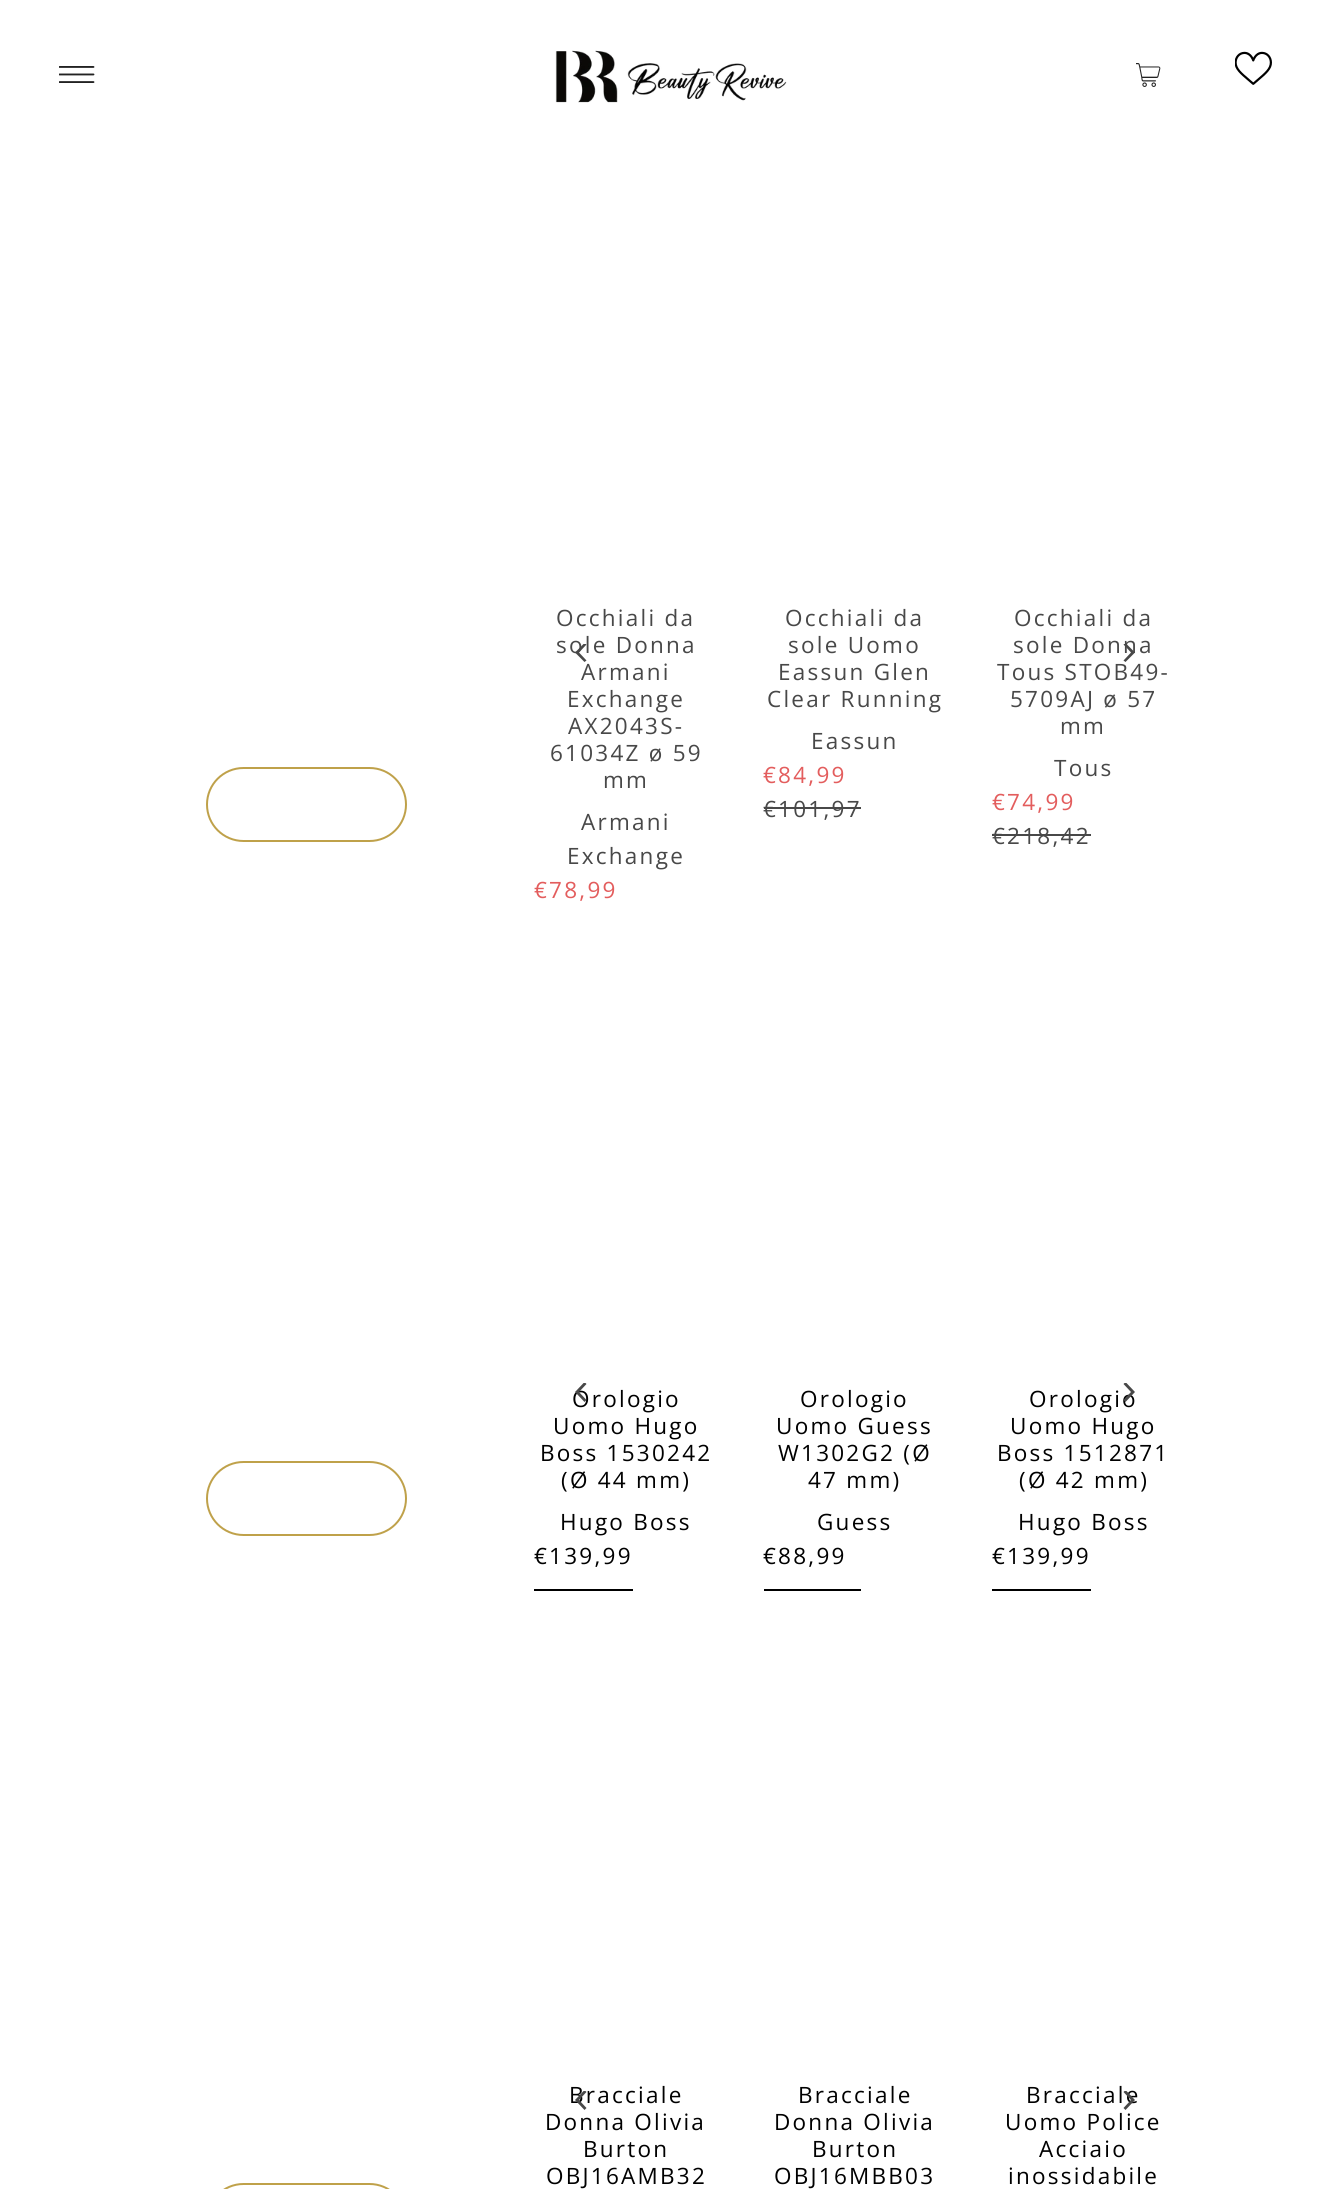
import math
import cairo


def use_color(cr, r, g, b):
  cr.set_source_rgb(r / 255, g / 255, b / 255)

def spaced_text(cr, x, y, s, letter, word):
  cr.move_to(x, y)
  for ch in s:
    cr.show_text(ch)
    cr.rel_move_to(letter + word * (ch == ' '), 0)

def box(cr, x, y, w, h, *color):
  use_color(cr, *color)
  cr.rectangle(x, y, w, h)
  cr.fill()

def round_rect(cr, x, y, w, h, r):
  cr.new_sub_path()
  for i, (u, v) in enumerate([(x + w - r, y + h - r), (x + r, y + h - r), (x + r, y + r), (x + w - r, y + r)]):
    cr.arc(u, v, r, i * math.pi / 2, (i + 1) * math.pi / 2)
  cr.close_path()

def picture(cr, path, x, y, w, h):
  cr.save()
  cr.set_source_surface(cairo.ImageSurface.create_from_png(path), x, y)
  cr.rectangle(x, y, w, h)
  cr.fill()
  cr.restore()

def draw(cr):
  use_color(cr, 255, 255, 255)
  cr.paint()
  picture(cr, "img_01.png", 59, 66, 36, 17)
  picture(cr, "img_02.png", 555, 50, 232, 53)
  picture(cr, "img_03.png", 1136, 63, 25, 24)
  picture(cr, "img_04.png", 1235, 51, 37, 34)
  round_rect(cr, 207, 768, 199, 73, 36.5)
  use_color(cr, 191, 161, 74)
  cr.stroke()
  box(cr, 764, 807, 97, 2, 72, 72, 72)
  box(cr, 992, 834, 99, 2, 72, 72, 72)
  cr.save()
  cr.rectangle(573, 644, 20, 19)
  cr.clip()
  cr.new_path()
  cr.move_to(575, 652.5)
  cr.line_to(584.5, 662)
  cr.line_to(586.5, 660.5)
  cr.line_to(579, 652.5)
  cr.line_to(586.5, 644.5)
  cr.line_to(584.5, 643)
  cr.close_path()
  cr.fill()
  cr.restore()
  cr.save()
  cr.rectangle(1118, 644, 19, 19)
  cr.clip()
  cr.new_path()
  cr.move_to(1135, 652.5)
  cr.line_to(1125.5, 643)
  cr.line_to(1123.5, 644.5)
  cr.line_to(1131, 652.5)
  cr.line_to(1123.5, 660.5)
  cr.line_to(1125.5, 662)
  cr.close_path()
  cr.fill()
  cr.restore()
  round_rect(cr, 207, 1462, 199, 73, 36.5)
  use_color(cr, 191, 161, 74)
  cr.stroke()
  box(cr, 534, 1589, 99, 2, 0, 0, 0)
  box(cr, 764, 1589, 97, 2, 0, 0, 0)
  box(cr, 992, 1589, 99, 2, 0, 0, 0)
  round_rect(cr, 207, 2184, 199, 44, 36.5)
  use_color(cr, 191, 161, 74)
  cr.stroke()
  cr.select_font_face("Open Sans")
  cr.set_font_size(22.5)
  use_color(cr, 72, 72, 72)
  spaced_text(cr, 556, 626, "Occhiali da", 2.25, 0)
  spaced_text(cr, 556, 653, "sole Donna", 2.25, 0)
  spaced_text(cr, 581, 680, "Armani", 2.25, 0)
  spaced_text(cr, 567, 707, "Exchange", 2.25, 0)
  spaced_text(cr, 568, 734, "AX2043S-", 2.25, 0)
  spaced_text(cr, 550, 761, "61034Z ø 59", 2.25, 0)
  spaced_text(cr, 603, 788, "mm", 2.25, 0)
  spaced_text(cr, 581, 830, "Armani", 2.25, 0)
  spaced_text(cr, 567, 864, "Exchange", 2.25, 0)
  use_color(cr, 227, 93, 93)
  spaced_text(cr, 534, 898, "€78,99", 2.25, 0)
  use_color(cr, 72, 72, 72)
  spaced_text(cr, 785, 626, "Occhiali da", 2.25, 0)
  spaced_text(cr, 788, 653, "sole Uomo", 2.25, 0)
  spaced_text(cr, 778, 680, "Eassun Glen", 2.25, 0)
  spaced_text(cr, 767, 707, "Clear Running", 2.25, 0)
  spaced_text(cr, 811, 749, "Eassun", 2.25, 0)
  use_color(cr, 227, 93, 93)
  spaced_text(cr, 763, 783, "€84,99", 2.25, 0)
  use_color(cr, 72, 72, 72)
  spaced_text(cr, 763, 817, "€101,97", 2.25, 0)
  spaced_text(cr, 1014, 626, "Occhiali da", 2.25, 0)
  spaced_text(cr, 1013, 653, "sole Donna", 2.25, 0)
  spaced_text(cr, 997, 680, "Tous STOB49-", 2.25, 0)
  spaced_text(cr, 1010, 707, "5709AJ ø 57", 2.25, 0)
  spaced_text(cr, 1060, 734, "mm", 2.25, 0)
  spaced_text(cr, 1054, 776, "Tous", 2.25, 0)
  use_color(cr, 227, 93, 93)
  spaced_text(cr, 992, 810, "€74,99", 2.25, 0)
  use_color(cr, 72, 72, 72)
  spaced_text(cr, 992, 844, "€218,42", 2.25, 0)
  use_color(cr, 0, 0, 0)
  spaced_text(cr, 572, 1407, "Orologio", 2.25, 0)
  cr.save()
  cr.rectangle(573, 1383, 20, 20)
  cr.clip()
  use_color(cr, 72, 72, 72)
  cr.new_path()
  cr.move_to(575, 1392)
  cr.line_to(584.5, 1402)
  cr.line_to(586.5, 1400)
  cr.line_to(579, 1392)
  cr.line_to(586.5, 1384)
  cr.line_to(584.5, 1382)
  cr.close_path()
  cr.fill()
  cr.restore()
  spaced_text(cr, 553, 1434, "Uomo Hugo", 2.25, 0)
  spaced_text(cr, 540, 1461, "Boss 1530242", 2.25, 0)
  spaced_text(cr, 561, 1488, "(Ø 44 mm)", 2.25, 0)
  spaced_text(cr, 560, 1530, "Hugo Boss", 2.25, 0)
  spaced_text(cr, 534, 1564, "€139,99", 2.25, 0)
  spaced_text(cr, 800, 1407, "Orologio", 2.25, 0)
  spaced_text(cr, 776, 1434, "Uomo Guess", 2.25, 0)
  spaced_text(cr, 778, 1461, "W1302G2 (Ø", 2.25, 0)
  spaced_text(cr, 808, 1488, "47 mm)", 2.25, 0)
  spaced_text(cr, 817, 1530, "Guess", 2.25, 0)
  spaced_text(cr, 763, 1564, "€88,99", 2.25, 0)
  spaced_text(cr, 1029, 1407, "Orologio", 2.25, 0)
  cr.save()
  cr.rectangle(1118, 1383, 19, 20)
  cr.clip()
  use_color(cr, 72, 72, 72)
  cr.new_path()
  cr.move_to(1135, 1392)
  cr.line_to(1125.5, 1382)
  cr.line_to(1123.5, 1384)
  cr.line_to(1131, 1392)
  cr.line_to(1123.5, 1400)
  cr.line_to(1125.5, 1402)
  cr.close_path()
  cr.fill()
  cr.restore()
  spaced_text(cr, 1010, 1434, "Uomo Hugo", 2.25, 0)
  spaced_text(cr, 997, 1461, "Boss 1512871", 2.25, 0)
  spaced_text(cr, 1019, 1488, "(Ø 42 mm)", 2.25, 0)
  spaced_text(cr, 1018, 1530, "Hugo Boss", 2.25, 0)
  spaced_text(cr, 992, 1564, "€139,99", 2.25, 0)
  spaced_text(cr, 569, 2103, "Bracciale", 2.25, 0)
  spaced_text(cr, 545, 2130, "Donna Olivia", 2.25, 0)
  spaced_text(cr, 583, 2157, "Burton", 2.25, 0)
  spaced_text(cr, 546, 2184, "OBJ16AMB32", 2.25, 0)
  spaced_text(cr, 798, 2103, "Bracciale", 2.25, 0)
  spaced_text(cr, 774, 2130, "Donna Olivia", 2.25, 0)
  spaced_text(cr, 812, 2157, "Burton", 2.25, 0)
  spaced_text(cr, 774, 2184, "OBJ16MBB03", 2.25, 0)
  spaced_text(cr, 1026, 2103, "Bracciale", 2.25, 0)
  spaced_text(cr, 1005, 2130, "Uomo Police", 2.25, 0)
  spaced_text(cr, 1039, 2157, "Acciaio", 2.25, 0)
  spaced_text(cr, 1008, 2184, "inossidabile", 2.25, 0)
  cr.save()
  cr.rectangle(573, 2091, 20, 20)
  cr.clip()
  use_color(cr, 72, 72, 72)
  cr.new_path()
  cr.move_to(575, 2100)
  cr.line_to(584.5, 2110)
  cr.line_to(586.5, 2108)
  cr.line_to(579, 2100)
  cr.line_to(586.5, 2092)
  cr.line_to(584.5, 2090)
  cr.close_path()
  cr.fill()
  cr.restore()
  cr.save()
  cr.rectangle(1118, 2091, 19, 20)
  cr.clip()
  use_color(cr, 72, 72, 72)
  cr.new_path()
  cr.move_to(1135, 2100)
  cr.line_to(1125.5, 2090)
  cr.line_to(1123.5, 2092)
  cr.line_to(1131, 2100)
  cr.line_to(1123.5, 2108)
  cr.line_to(1125.5, 2110)
  cr.close_path()
  cr.fill()
  cr.restore()


surface = cairo.ImageSurface(cairo.FORMAT_RGB24, 1344, 2189)
cr = cairo.Context(surface)
options = cairo.FontOptions()
options.set_hint_metrics(cairo.HINT_METRICS_OFF)
options.set_hint_style(cairo.HINT_STYLE_NONE)
cr.set_font_options(options)
cr.set_miter_limit(4)
draw(cr)
surface.write_to_png("out.png")
